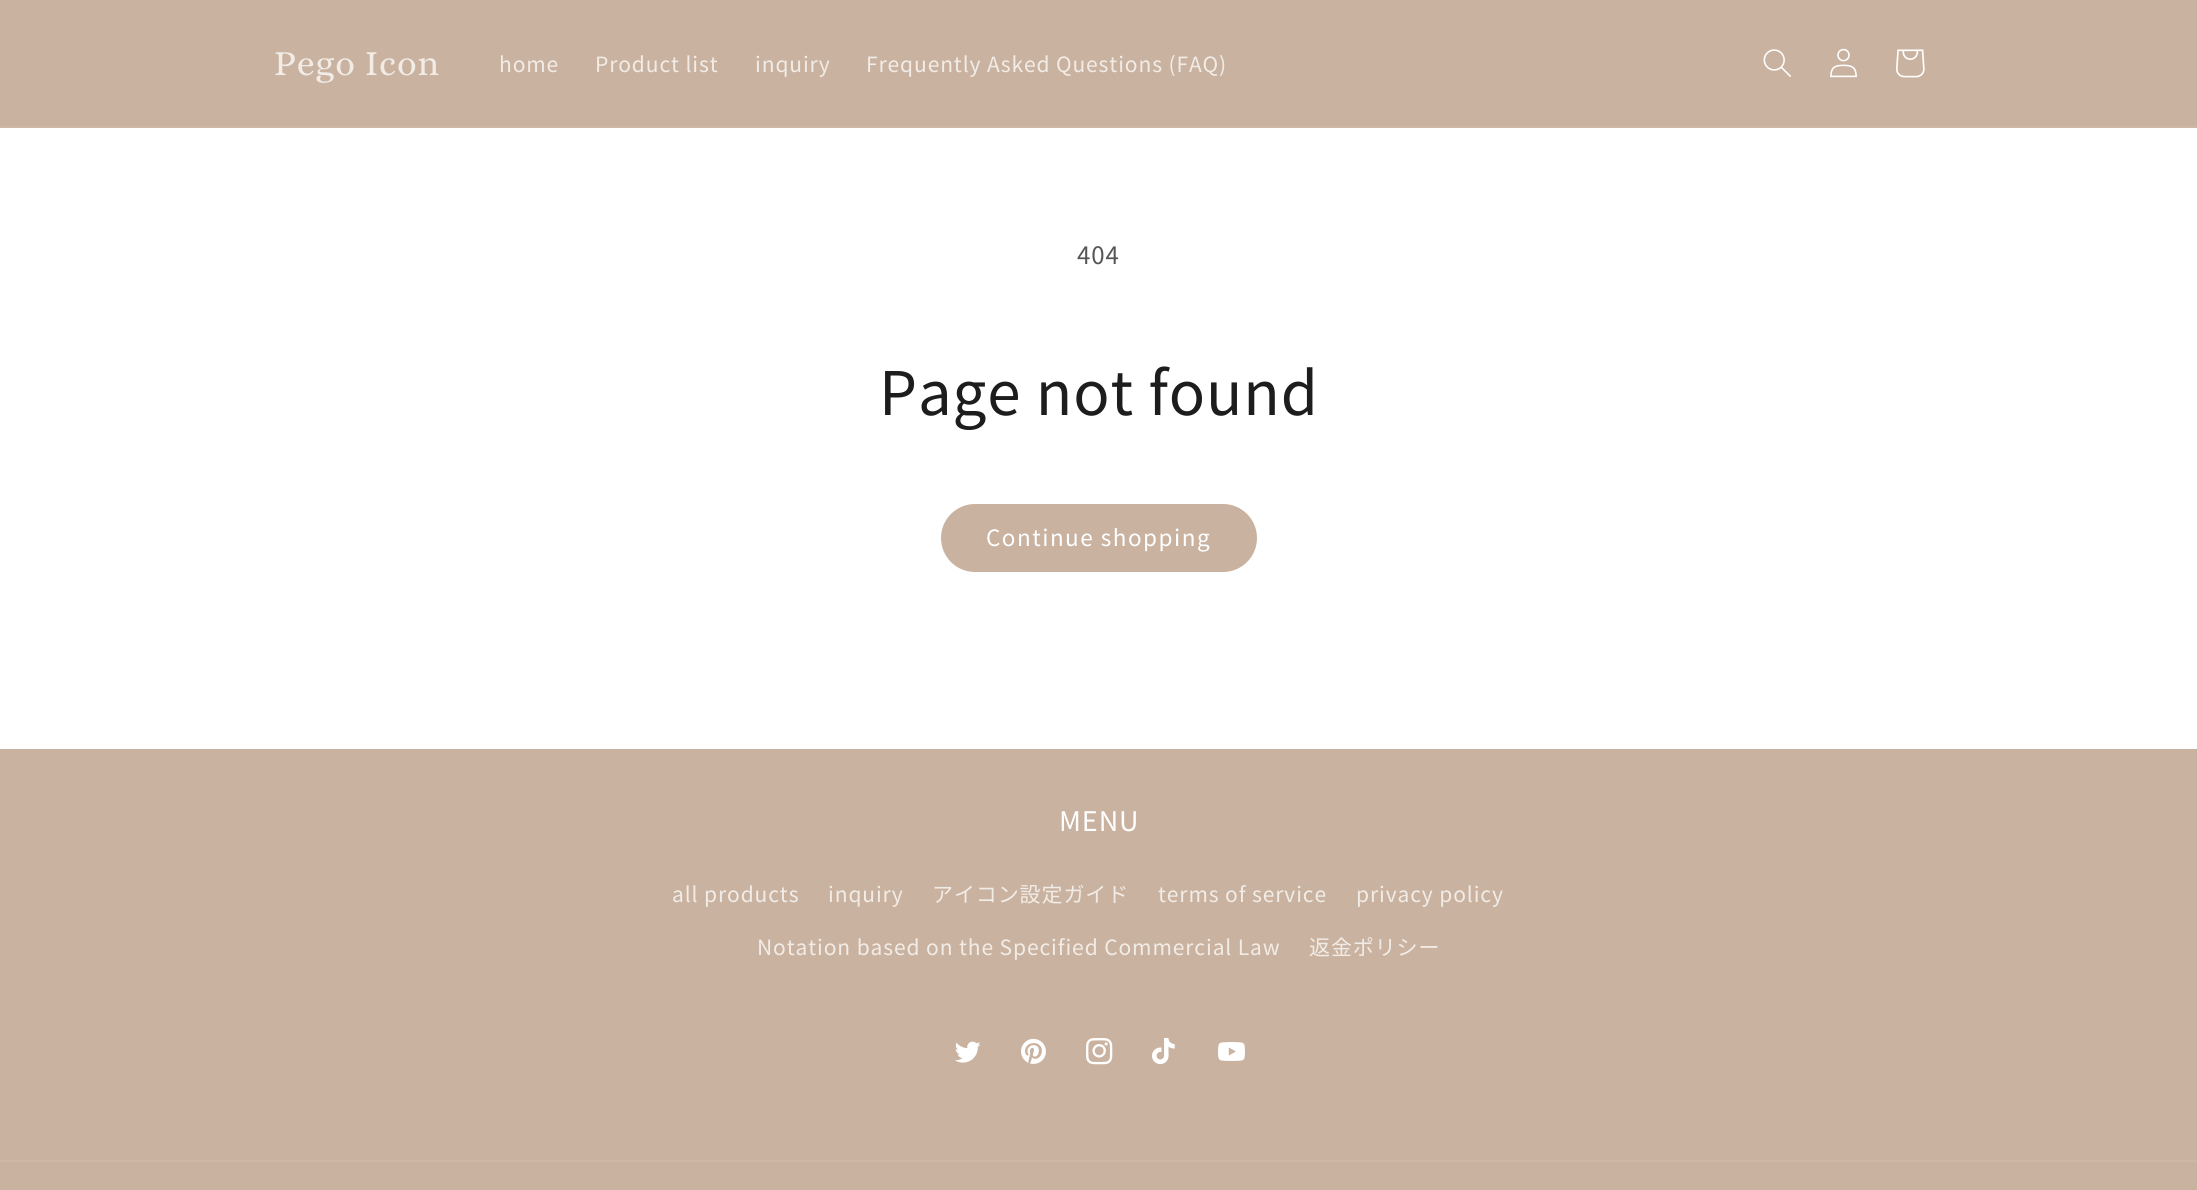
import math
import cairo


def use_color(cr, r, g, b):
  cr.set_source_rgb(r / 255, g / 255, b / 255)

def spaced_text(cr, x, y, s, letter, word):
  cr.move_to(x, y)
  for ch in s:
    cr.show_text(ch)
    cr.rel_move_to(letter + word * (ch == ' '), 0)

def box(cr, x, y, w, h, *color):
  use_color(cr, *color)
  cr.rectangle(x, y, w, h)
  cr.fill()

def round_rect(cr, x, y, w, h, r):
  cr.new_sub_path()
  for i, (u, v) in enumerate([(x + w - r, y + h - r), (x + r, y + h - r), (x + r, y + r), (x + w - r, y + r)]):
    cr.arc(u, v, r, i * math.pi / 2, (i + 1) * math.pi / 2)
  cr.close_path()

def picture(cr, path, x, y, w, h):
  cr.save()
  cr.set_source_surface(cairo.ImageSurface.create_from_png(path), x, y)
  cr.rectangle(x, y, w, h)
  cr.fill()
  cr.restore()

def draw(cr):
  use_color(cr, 255, 255, 255)
  cr.paint()
  box(cr, 0, 0, 2197, 126, 201, 178, 160)
  box(cr, 0, 126, 2197, 2, 205, 184, 168)
  picture(cr, "img_01.png", 1763, 49, 28, 28)
  picture(cr, "img_02.png", 1830, 48, 27, 30)
  picture(cr, "img_03.png", 1896, 49, 29, 29)
  use_color(cr, 201, 178, 160)
  round_rect(cr, 941, 504, 316, 68, 34)
  cr.fill()
  box(cr, 0, 749, 2197, 441, 201, 178, 160)
  picture(cr, "img_04.png", 955, 1041, 26, 22)
  picture(cr, "img_05.png", 1021, 1038, 25, 26)
  picture(cr, "img_06.png", 1086, 1038, 27, 27)
  picture(cr, "img_07.png", 1152, 1038, 23, 27)
  picture(cr, "img_08.png", 1218, 1042, 27, 19)
  box(cr, 0, 1160, 2197, 2, 205, 184, 168)
  cr.select_font_face("Alice")
  cr.set_font_size(36)
  use_color(cr, 242, 236, 231)
  spaced_text(cr, 274, 75, "Pego Icon", 0.9, 0)
  cr.select_font_face("Noto Sans JP")
  cr.set_font_size(21)
  spaced_text(cr, 499, 72, "home", 0.9, 0)
  spaced_text(cr, 595, 72, "Product list", 0.9, 0)
  spaced_text(cr, 755, 72, "inquiry", 0.9, 0)
  spaced_text(cr, 866, 72, "Frequently Asked Questions (FAQ)", 0.9, 0)
  cr.set_font_size(24)
  use_color(cr, 86, 86, 86)
  spaced_text(cr, 1077, 264, "404", 0.9, 0)
  cr.set_font_size(60)
  use_color(cr, 29, 29, 29)
  spaced_text(cr, 879, 415, "Page not found", 0.9, 0)
  cr.set_font_size(22.5)
  use_color(cr, 255, 255, 255)
  spaced_text(cr, 986, 546, "Continue shopping", 1.5, 0)
  cr.set_font_size(27)
  spaced_text(cr, 1059, 831, "MENU", 0.9, 0)
  cr.set_font_size(21)
  use_color(cr, 242, 236, 231)
  spaced_text(cr, 672, 902, "all products", 0.9, 0)
  spaced_text(cr, 828, 902, "inquiry", 0.9, 0)
  spaced_text(cr, 932, 902, "アイコン設定ガイド", 0.9, 0)
  spaced_text(cr, 1158, 902, "terms of service", 0.9, 0)
  spaced_text(cr, 1356, 902, "privacy policy", 0.9, 0)
  spaced_text(cr, 757, 955, "Notation based on the Specified Commercial Law", 0.9, 0)
  spaced_text(cr, 1309, 955, "返金ポリシー", 0.9, 0)


surface = cairo.ImageSurface(cairo.FORMAT_RGB24, 2197, 1190)
cr = cairo.Context(surface)
options = cairo.FontOptions()
options.set_hint_metrics(cairo.HINT_METRICS_OFF)
options.set_hint_style(cairo.HINT_STYLE_NONE)
cr.set_font_options(options)
cr.set_miter_limit(4)
draw(cr)
surface.write_to_png("out.png")
